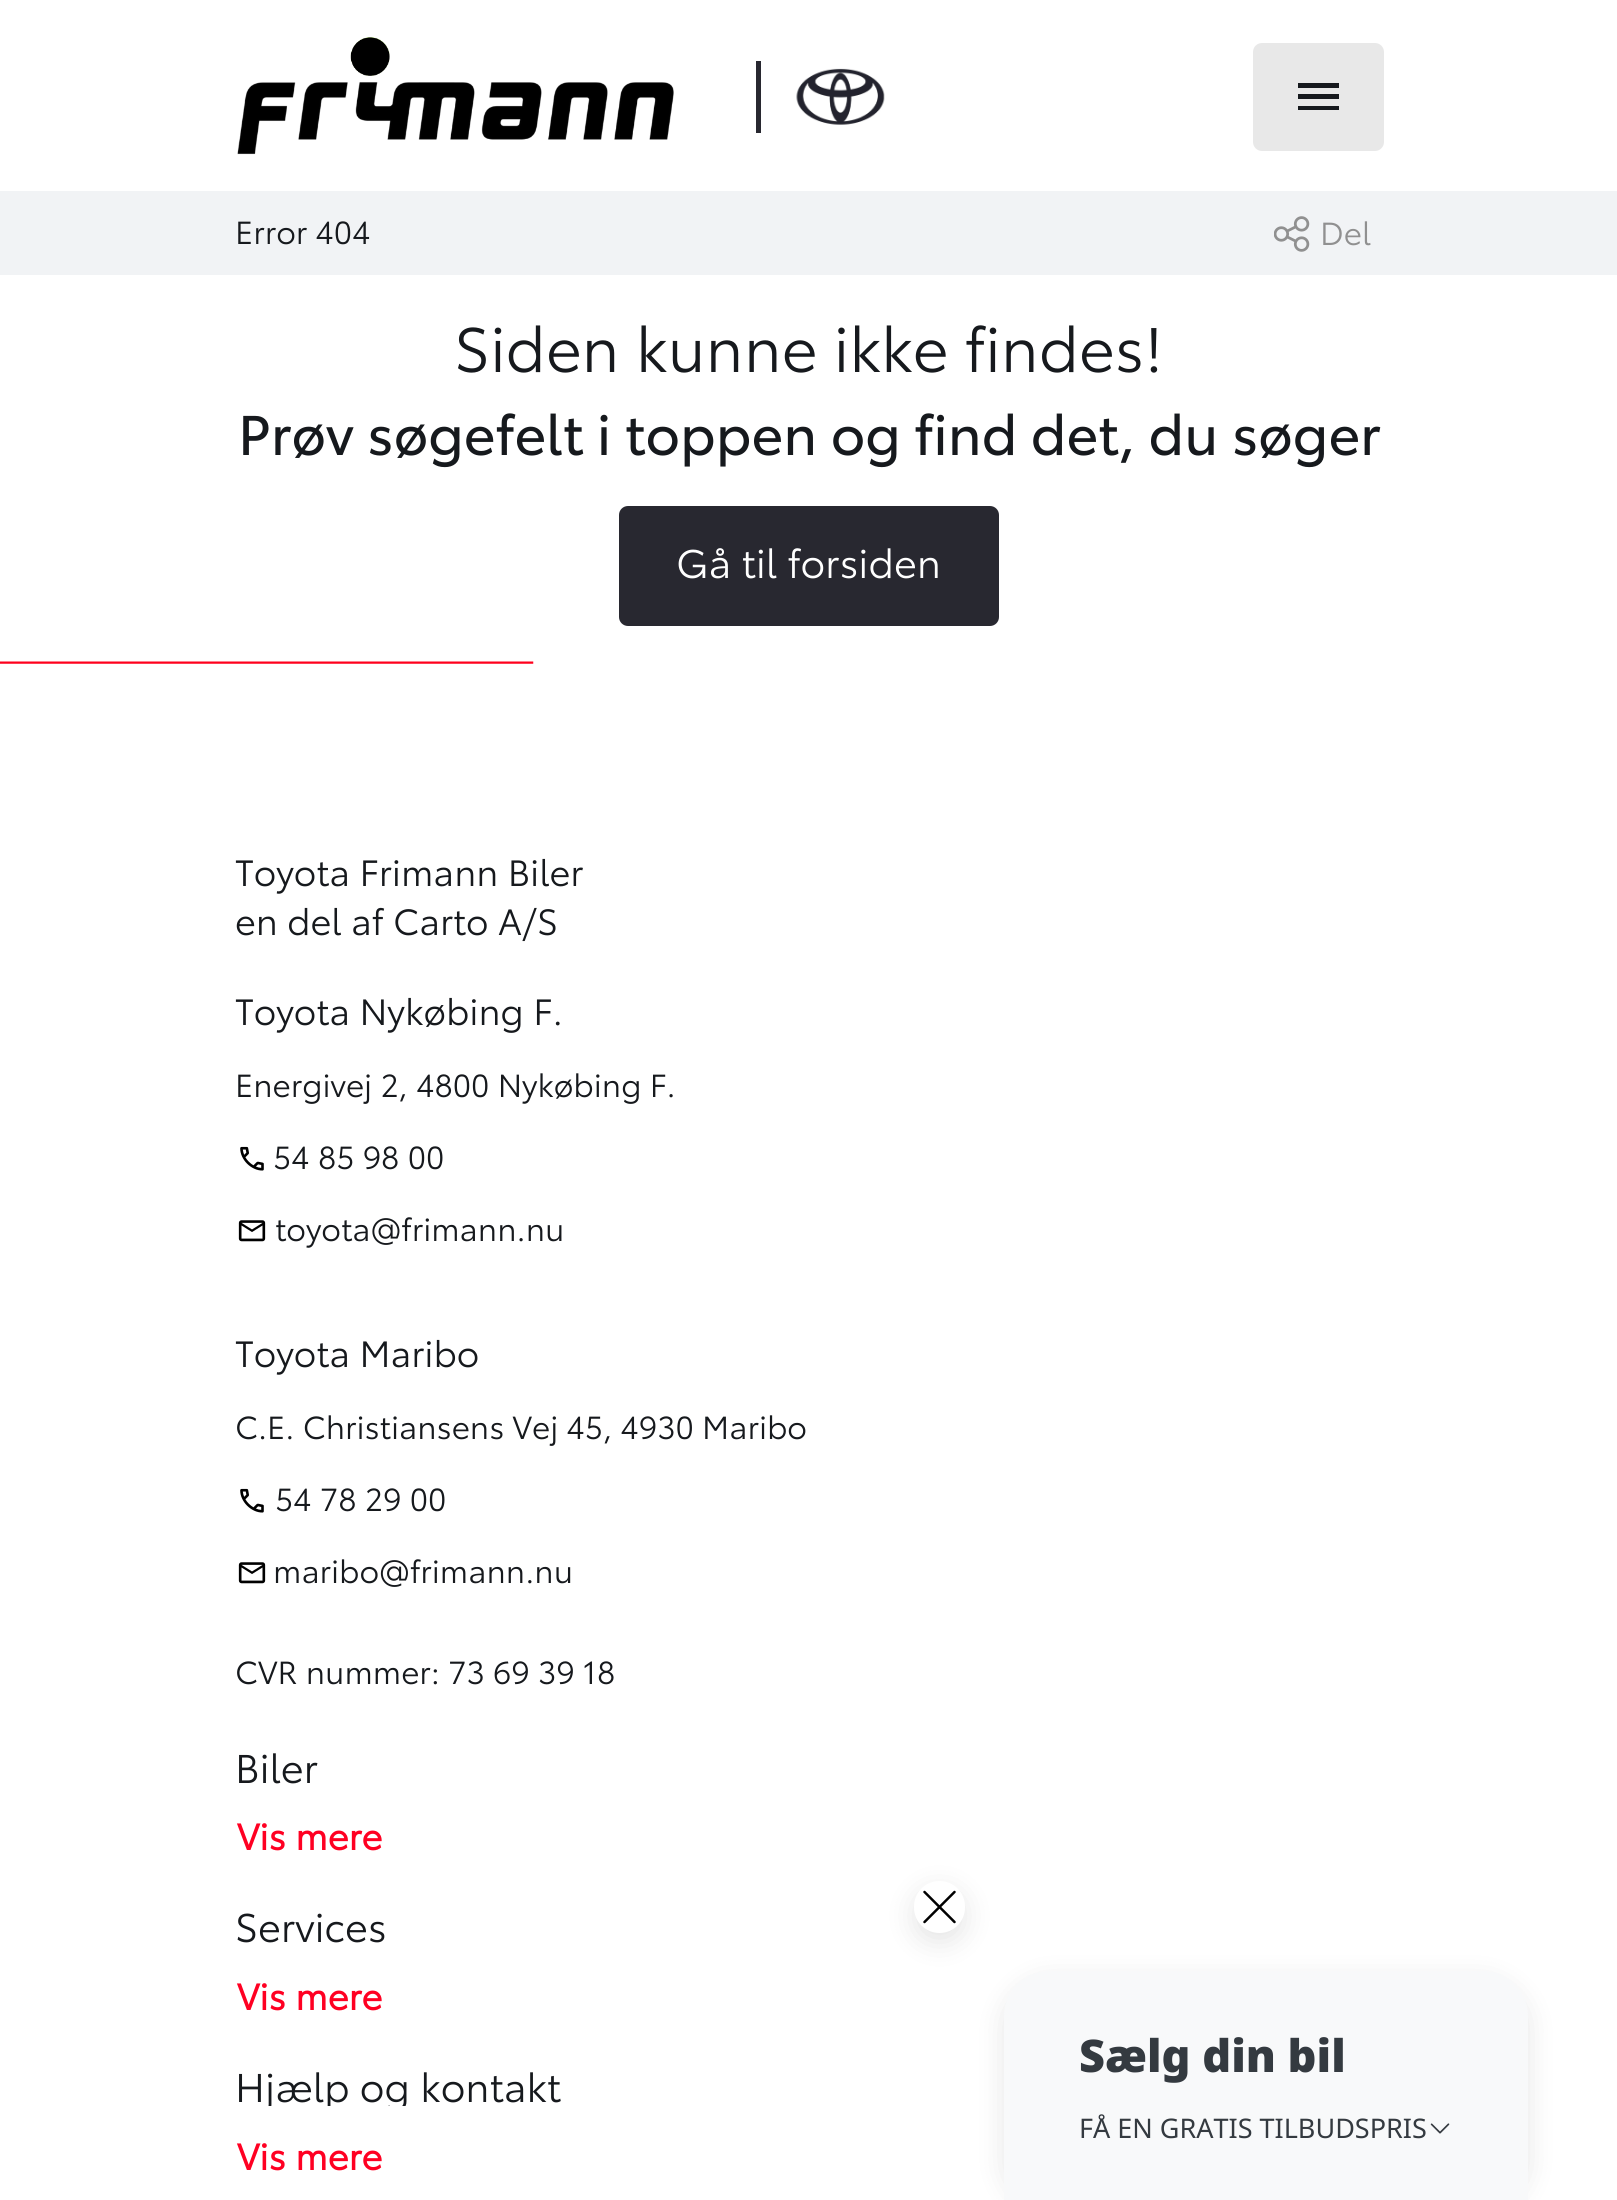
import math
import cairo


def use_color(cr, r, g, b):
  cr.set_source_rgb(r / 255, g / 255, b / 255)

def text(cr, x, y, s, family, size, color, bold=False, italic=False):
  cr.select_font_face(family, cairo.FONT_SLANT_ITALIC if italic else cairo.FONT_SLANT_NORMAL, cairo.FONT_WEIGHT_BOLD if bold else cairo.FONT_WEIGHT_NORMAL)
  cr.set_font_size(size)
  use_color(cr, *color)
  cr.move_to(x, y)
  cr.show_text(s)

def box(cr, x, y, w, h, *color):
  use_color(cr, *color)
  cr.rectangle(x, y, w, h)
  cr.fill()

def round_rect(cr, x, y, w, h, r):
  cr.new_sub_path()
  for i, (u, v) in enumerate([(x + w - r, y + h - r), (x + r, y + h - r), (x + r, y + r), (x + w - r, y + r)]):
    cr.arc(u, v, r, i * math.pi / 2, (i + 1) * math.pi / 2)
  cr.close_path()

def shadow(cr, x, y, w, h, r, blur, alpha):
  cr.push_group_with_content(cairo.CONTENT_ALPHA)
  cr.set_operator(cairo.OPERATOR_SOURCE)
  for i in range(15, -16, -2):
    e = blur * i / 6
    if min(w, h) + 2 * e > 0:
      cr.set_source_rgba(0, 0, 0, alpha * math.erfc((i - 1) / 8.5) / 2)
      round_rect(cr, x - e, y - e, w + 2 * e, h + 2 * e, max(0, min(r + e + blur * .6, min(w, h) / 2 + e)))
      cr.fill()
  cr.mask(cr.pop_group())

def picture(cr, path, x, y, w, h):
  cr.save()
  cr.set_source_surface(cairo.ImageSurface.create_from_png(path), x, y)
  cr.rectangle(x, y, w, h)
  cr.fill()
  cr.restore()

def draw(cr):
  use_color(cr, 255, 255, 255)
  cr.paint()
  picture(cr, "img_01.png", 237, 37, 437, 118)
  box(cr, 756, 61, 5, 72, 40, 40, 48)
  picture(cr, "img_02.png", 796, 68, 89, 57)
  use_color(cr, 232, 232, 232)
  round_rect(cr, 1254, 44, 129, 106, 8)
  cr.fill_preserve()
  cr.stroke()
  use_color(cr, 22, 25, 29)
  cr.new_path()
  cr.move_to(1298, 110)
  cr.line_to(1298, 106)
  cr.line_to(1339, 106)
  cr.line_to(1339, 110)
  cr.close_path()
  cr.move_to(1298, 99)
  cr.line_to(1298, 94)
  cr.line_to(1339, 94)
  cr.line_to(1339, 99)
  cr.close_path()
  cr.move_to(1298, 88)
  cr.line_to(1298, 83)
  cr.line_to(1339, 83)
  cr.line_to(1339, 88)
  cr.close_path()
  cr.fill()
  box(cr, 0, 191, 1617, 84, 241, 243, 245)
  picture(cr, "img_03.png", 1274, 216, 36, 36)
  use_color(cr, 40, 40, 48)
  round_rect(cr, 620, 507, 378, 118, 8)
  cr.fill_preserve()
  cr.stroke()
  picture(cr, "img_04.png", 0, 661, 534, 3)
  picture(cr, "img_05.png", 240, 1146, 24, 25)
  picture(cr, "img_06.png", 238, 1220, 28, 22)
  picture(cr, "img_05.png", 240, 1488, 24, 25)
  picture(cr, "img_06.png", 238, 1562, 28, 22)
  use_color(cr, 0, 0, 0)
  shadow(cr, 1004, 1980, 524, 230, 45, 13.5, 0.1)
  use_color(cr, 248, 249, 250)
  cr.new_path()
  cr.move_to(1049, 1971)
  cr.line_to(1483, 1971)
  cr.curve_to(1508, 1971, 1528, 1991, 1528, 2016)
  cr.line_to(1528, 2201)
  cr.line_to(1004, 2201)
  cr.line_to(1004, 2016)
  cr.curve_to(1004, 1991, 1024, 1971, 1049, 1971)
  cr.close_path()
  cr.fill()
  use_color(cr, 0, 0, 0)
  shadow(cr, 914, 1890, 51, 52, 25.5, 13.5, 0.1)
  use_color(cr, 255, 255, 255)
  round_rect(cr, 914, 1881, 51, 52, 25.5)
  cr.fill()
  cr.new_path()
  cr.move_to(954.5, 1892)
  cr.line_to(924.5, 1922)
  cr.move_to(954.5, 1922)
  cr.line_to(924.5, 1892)
  use_color(cr, 0, 0, 0)
  cr.set_line_width(2.5)
  cr.set_line_cap(cairo.LINE_CAP_ROUND)
  cr.stroke()
  picture(cr, "img_07.png", 1430, 2123, 20, 11)
  text(cr, 235, 244, "Error 404", "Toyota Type", 31.5, (22, 25, 29))
  text(cr, 1320, 245, "Del", "Toyota Type", 31.5, (144, 144, 144))
  text(cr, 454, 372, "Siden kunne ikke findes!", "Toyota Type", 61.9, (22, 25, 29))
  text(cr, 238, 455, "Prøv søgefelt i toppen og find det, du søger", "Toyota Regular", 55.1, (22, 25, 29))
  text(cr, 676, 578, "Gå til forsiden", "Toyota Type", 39.5, (255, 255, 255))
  text(cr, 235, 886, "Toyota Frimann Biler", "Toyota Type", 36, (22, 25, 29))
  text(cr, 235, 935, "en del af Carto A/S", "Toyota Type", 36, (22, 25, 29))
  text(cr, 235, 1025, "Toyota Nykøbing F.", "Toyota Type", 36, (22, 25, 29))
  text(cr, 235, 1097, "Energivej 2, 4800 Nykøbing F.", "Toyota Type", 31.5, (22, 25, 29))
  text(cr, 273, 1169, "54 85 98 00", "Toyota Type", 31.5, (22, 25, 29))
  text(cr, 275, 1241, "toyota@frimann.nu", "Toyota Type", 31.5, (22, 25, 29))
  text(cr, 235, 1367, "Toyota Maribo", "Toyota Type", 36, (22, 25, 29))
  text(cr, 235, 1439, "C.E. Christiansens Vej 45, 4930 Maribo", "Toyota Type", 31.5, (22, 25, 29))
  text(cr, 275, 1511, "54 78 29 00", "Toyota Type", 31.5, (22, 25, 29))
  text(cr, 273, 1583, "maribo@frimann.nu", "Toyota Type", 31.5, (22, 25, 29))
  text(cr, 235, 1684, "CVR nummer: 73 69 39 18", "Toyota Type", 31.5, (22, 25, 29))
  text(cr, 235, 1783, "Biler", "Toyota Type", 39.5, (22, 25, 29))
  text(cr, 237, 1850, "Vis mere", "Toyota Type", 36, (255, 0, 34), bold=True)
  text(cr, 235, 1942, "Services", "Toyota Type", 39.5, (22, 25, 29))
  text(cr, 237, 2010, "Vis mere", "Toyota Type", 36, (255, 0, 34), bold=True)
  cr.save()
  cr.rectangle(236, 2061, 1148, 45)
  cr.clip()
  text(cr, 235, 2102, "Hjælp og kontakt", "Toyota Type", 39.5, (22, 25, 29))
  cr.restore()
  text(cr, 237, 2170, "Vis mere", "Toyota Type", 36, (255, 0, 34), bold=True)
  text(cr, 1079, 2072, "Sælg din bil", "Noto Sans Black", 45, (52, 58, 64))
  text(cr, 1079, 2138, "FÅ EN GRATIS TILBUDSPRIS", "Noto Sans", 27, (52, 58, 64))


surface = cairo.ImageSurface(cairo.FORMAT_RGB24, 1617, 2200)
cr = cairo.Context(surface)
options = cairo.FontOptions()
options.set_hint_metrics(cairo.HINT_METRICS_OFF)
options.set_hint_style(cairo.HINT_STYLE_NONE)
cr.set_font_options(options)
cr.set_miter_limit(4)
draw(cr)
surface.write_to_png("out.png")
